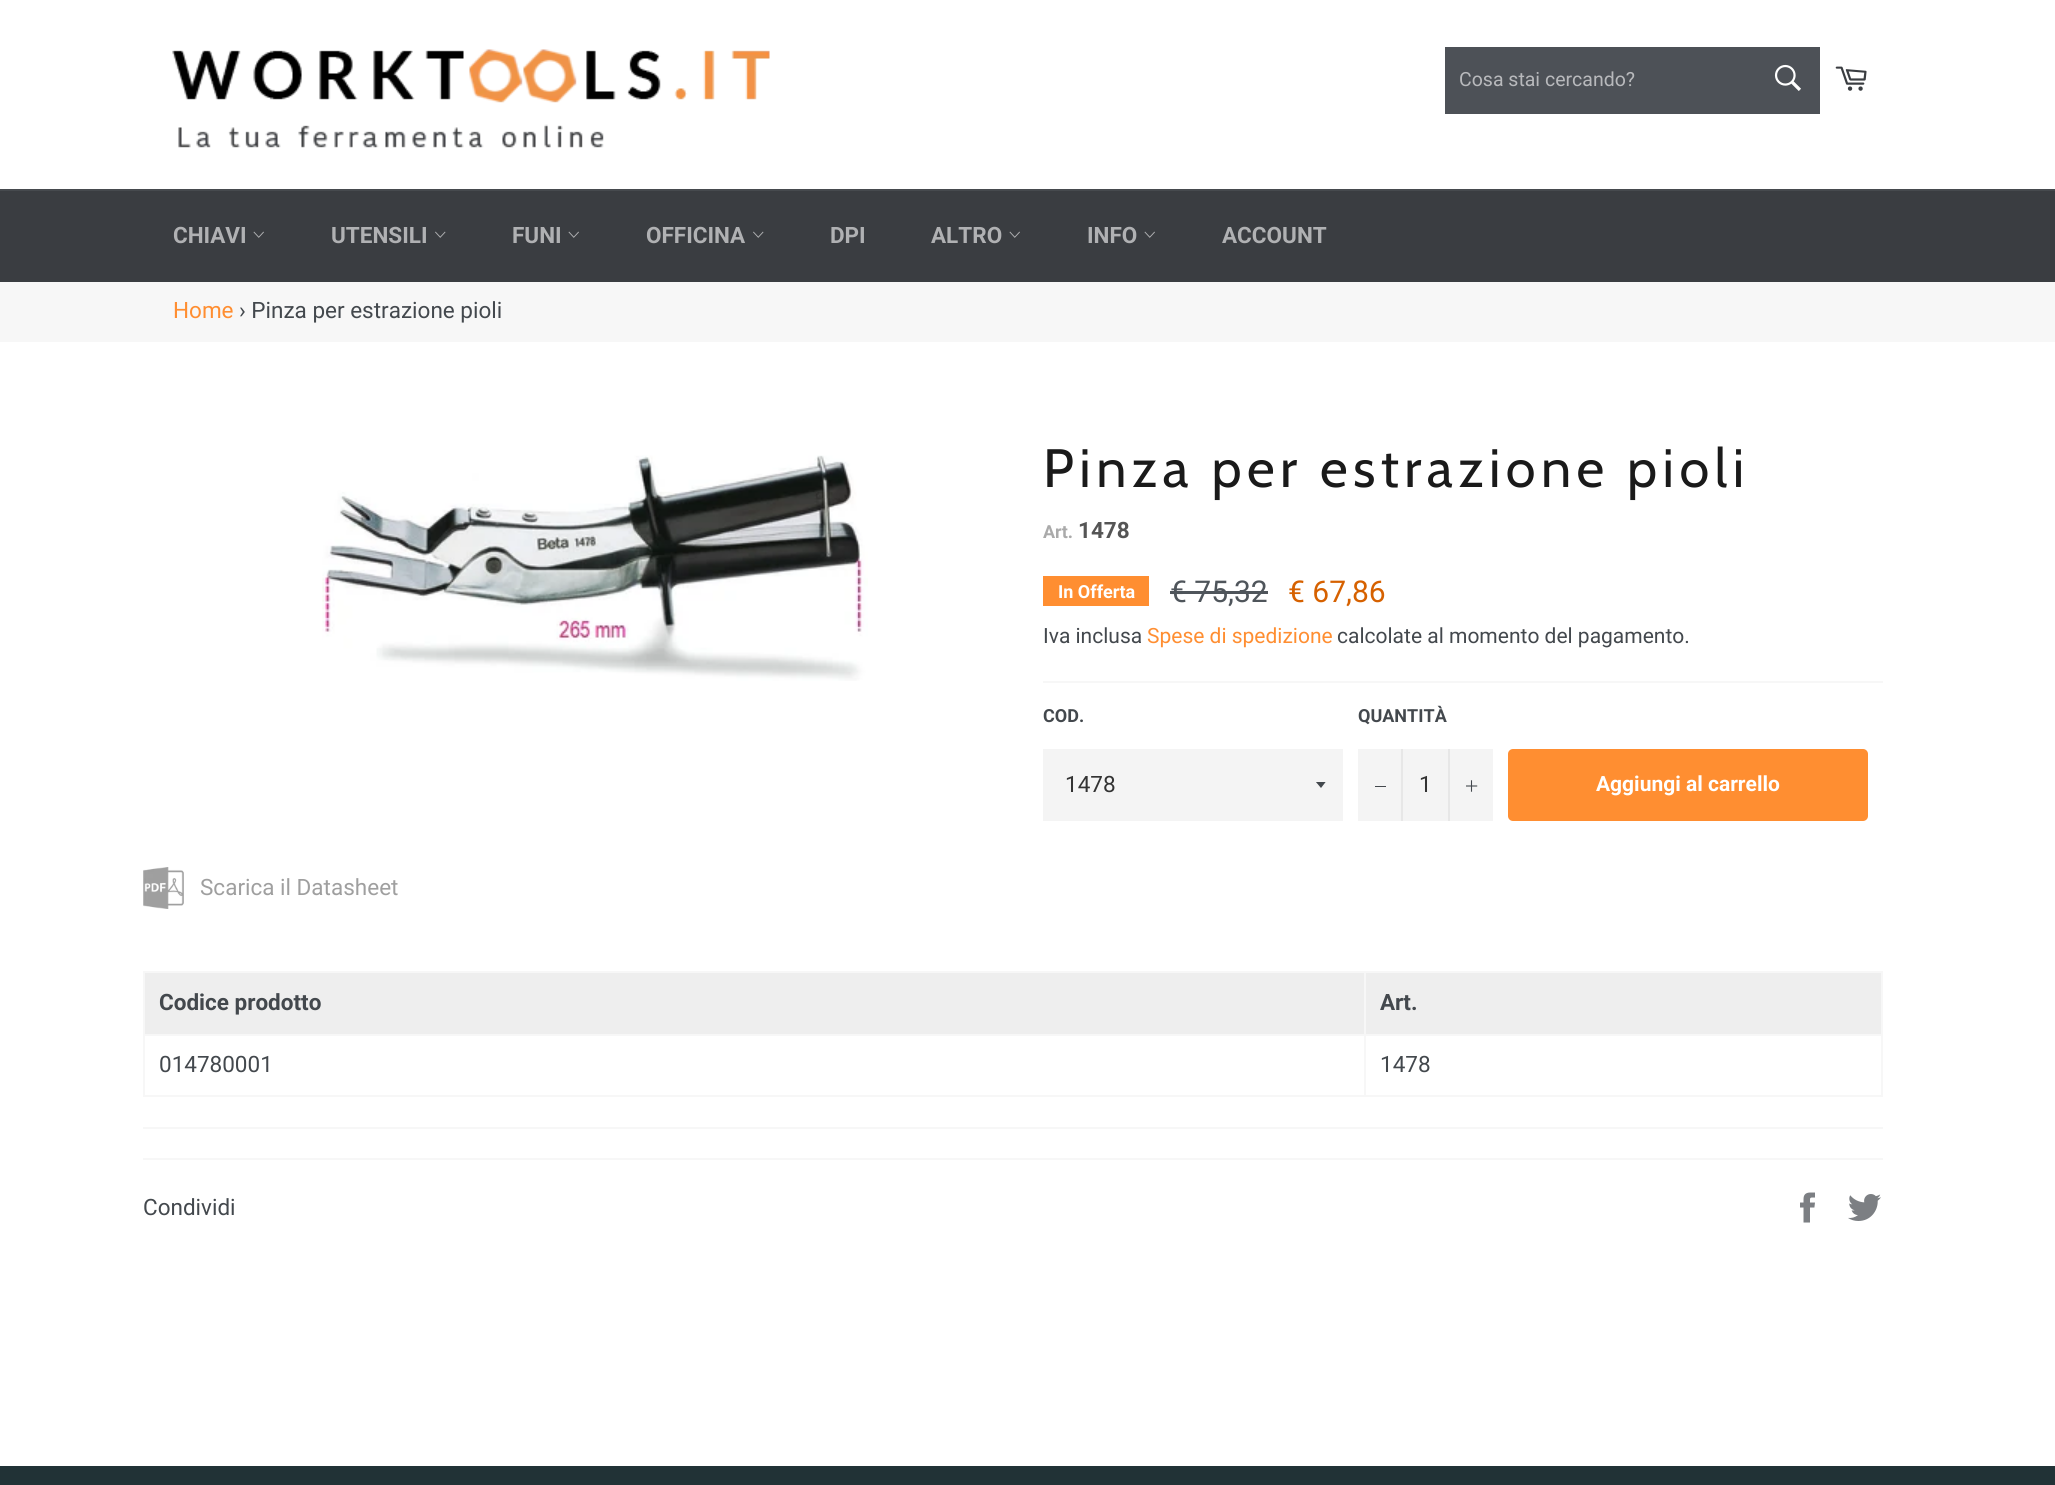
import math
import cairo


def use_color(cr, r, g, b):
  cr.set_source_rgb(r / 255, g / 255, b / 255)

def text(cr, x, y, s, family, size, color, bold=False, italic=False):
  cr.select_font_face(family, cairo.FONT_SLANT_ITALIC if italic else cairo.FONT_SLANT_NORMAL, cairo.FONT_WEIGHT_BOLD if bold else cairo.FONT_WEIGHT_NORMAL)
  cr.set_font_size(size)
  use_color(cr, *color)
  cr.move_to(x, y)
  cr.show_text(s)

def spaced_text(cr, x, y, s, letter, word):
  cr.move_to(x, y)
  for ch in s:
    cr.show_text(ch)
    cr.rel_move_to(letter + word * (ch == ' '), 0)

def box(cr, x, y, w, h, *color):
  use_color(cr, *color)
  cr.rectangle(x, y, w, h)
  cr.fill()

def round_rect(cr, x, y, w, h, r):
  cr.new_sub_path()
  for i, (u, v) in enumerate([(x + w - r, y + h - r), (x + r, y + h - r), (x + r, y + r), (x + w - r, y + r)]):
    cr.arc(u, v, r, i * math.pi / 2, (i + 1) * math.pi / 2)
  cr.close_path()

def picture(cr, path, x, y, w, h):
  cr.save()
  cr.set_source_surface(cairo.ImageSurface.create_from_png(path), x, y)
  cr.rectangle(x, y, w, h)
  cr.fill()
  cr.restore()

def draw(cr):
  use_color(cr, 247, 247, 247)
  cr.paint()
  box(cr, 0, 0, 2055, 189, 255, 255, 255)
  picture(cr, "img_01.png", 172, 49, 598, 99)
  box(cr, 1445, 47, 375, 67, 77, 81, 87)
  picture(cr, "img_02.png", 1774, 64, 27, 27)
  picture(cr, "img_03.png", 1835, 66, 32, 25)
  box(cr, 0, 191, 2055, 91, 58, 61, 65)
  box(cr, 0, 189, 2055, 2, 70, 74, 78)
  picture(cr, "img_04.png", 253, 231, 11, 7)
  picture(cr, "img_05.png", 435, 231, 11, 7)
  picture(cr, "img_04.png", 568, 231, 11, 7)
  picture(cr, "img_05.png", 753, 231, 11, 7)
  picture(cr, "img_04.png", 1009, 231, 11, 7)
  picture(cr, "img_04.png", 1144, 231, 11, 7)
  box(cr, 0, 342, 2055, 1124, 255, 255, 255)
  picture(cr, "img_06.png", 322, 455, 546, 226)
  box(cr, 1043, 576, 106, 30, 255, 142, 49)
  box(cr, 1170, 591, 98, 3, 79, 85, 91)
  box(cr, 1043, 681, 840, 2, 247, 247, 247)
  box(cr, 1043, 749, 300, 72, 244, 244, 244)
  cr.save()
  cr.rectangle(1316, 782, 12, 7)
  cr.clip()
  use_color(cr, 67, 72, 77)
  cr.new_path()
  cr.move_to(1315.5, 781.5)
  cr.line_to(1321, 788)
  cr.line_to(1326, 781.5)
  cr.close_path()
  cr.fill()
  cr.restore()
  box(cr, 1358, 749, 135, 72, 244, 244, 244)
  box(cr, 1401, 749, 2, 72, 231, 231, 231)
  box(cr, 1375, 786, 11, 1, 67, 72, 77)
  box(cr, 1448, 749, 2, 72, 231, 231, 231)
  picture(cr, "img_07.png", 1466, 780, 12, 12)
  use_color(cr, 255, 142, 49)
  round_rect(cr, 1508, 749, 360, 72, 5)
  cr.fill()
  picture(cr, "img_08.png", 143, 867, 41, 42)
  box(cr, 145, 973, 1219, 61, 238, 238, 238)
  box(cr, 1364, 971, 519, 2, 247, 247, 247)
  box(cr, 1364, 1034, 519, 2, 247, 247, 247)
  box(cr, 1881, 1034, 2, 63, 247, 247, 247)
  box(cr, 1364, 1095, 519, 2, 247, 247, 247)
  box(cr, 1364, 1034, 2, 63, 247, 247, 247)
  box(cr, 143, 1034, 1222, 2, 247, 247, 247)
  box(cr, 1364, 971, 2, 64, 247, 247, 247)
  box(cr, 143, 971, 1222, 2, 247, 247, 247)
  box(cr, 143, 1095, 1222, 2, 247, 247, 247)
  box(cr, 143, 1034, 2, 63, 247, 247, 247)
  box(cr, 143, 971, 2, 64, 247, 247, 247)
  box(cr, 1366, 973, 515, 61, 238, 238, 238)
  box(cr, 1881, 971, 2, 64, 247, 247, 247)
  box(cr, 143, 1127, 1740, 2, 247, 247, 247)
  box(cr, 143, 1158, 1740, 2, 247, 247, 247)
  picture(cr, "img_09.png", 1800, 1192, 15, 31)
  picture(cr, "img_10.png", 1848, 1194, 33, 27)
  box(cr, 0, 1466, 2055, 19, 33, 50, 54)
  text(cr, 1459, 86, "Cosa stai cercando?", "Roboto", 19.5, (184, 185, 188))
  text(cr, 173, 243, "CHIAVI", "Roboto", 22.5, (176, 177, 179), bold=True)
  text(cr, 331, 243, "UTENSILI", "Roboto", 22.5, (176, 177, 179), bold=True)
  text(cr, 512, 243, "FUNI", "Roboto", 22.5, (176, 177, 179), bold=True)
  text(cr, 646, 243, "OFFICINA", "Roboto", 22.5, (176, 177, 179), bold=True)
  text(cr, 830, 243, "DPI", "Roboto", 22.5, (176, 177, 179), bold=True)
  text(cr, 931, 243, "ALTRO", "Roboto", 22.5, (176, 177, 179), bold=True)
  text(cr, 1087, 243, "INFO", "Roboto", 22.5, (176, 177, 179), bold=True)
  text(cr, 1222, 243, "ACCOUNT", "Roboto", 22.5, (176, 177, 179), bold=True)
  text(cr, 173, 318, "Home", "Roboto", 22.5, (255, 142, 49))
  text(cr, 239, 318, "› Pinza per estrazione pioli", "Roboto", 22.5, (67, 72, 77))
  cr.select_font_face("Cabin")
  cr.set_font_size(54)
  use_color(cr, 26, 26, 26)
  spaced_text(cr, 1043, 487, "Pinza per estrazione pioli", 5.4, 0)
  text(cr, 1043, 538, "Art.", "Roboto", 18, (170, 170, 170), bold=True)
  text(cr, 1078, 538, "1478", "Roboto", 22.5, (85, 85, 85), bold=True)
  text(cr, 1058, 598, "In Offerta", "Roboto", 18, (255, 255, 255), bold=True)
  text(cr, 1170, 602, "€ 75,32", "Roboto", 30, (79, 85, 91))
  text(cr, 1288, 602, "€ 67,86", "Roboto", 30, (214, 97, 0))
  text(cr, 1043, 643, "Iva inclusa", "Roboto", 21, (67, 72, 77))
  text(cr, 1147, 643, "Spese di spedizione", "Roboto", 21, (255, 142, 49))
  text(cr, 1337, 643, "calcolate al momento del pagamento.", "Roboto", 21, (67, 72, 77))
  text(cr, 1043, 722, "COD.", "Roboto", 18, (67, 72, 77), bold=True)
  text(cr, 1065, 792, "1478", "Roboto", 22.5, (51, 51, 51))
  text(cr, 1358, 722, "QUANTITÀ", "Roboto", 18, (67, 72, 77), bold=True)
  text(cr, 1419, 792, "1", "Roboto", 22.5, (51, 51, 51))
  text(cr, 1596, 791, "Aggiungi al carrello", "Roboto", 21, (255, 255, 255), bold=True)
  text(cr, 200, 895, "Scarica il Datasheet", "Roboto", 22.5, (159, 159, 159))
  text(cr, 159, 1010, "Codice prodotto", "Roboto", 22.5, (67, 72, 77), bold=True)
  text(cr, 1380, 1010, "Art.", "Roboto", 22.5, (67, 72, 77), bold=True)
  text(cr, 159, 1072, "014780001", "Roboto", 22.5, (67, 72, 77))
  text(cr, 1380, 1072, "1478", "Roboto", 22.5, (67, 72, 77))
  text(cr, 143, 1215, "Condividi", "Roboto", 22.5, (67, 72, 77))


surface = cairo.ImageSurface(cairo.FORMAT_RGB24, 2055, 1485)
cr = cairo.Context(surface)
options = cairo.FontOptions()
options.set_hint_metrics(cairo.HINT_METRICS_OFF)
options.set_hint_style(cairo.HINT_STYLE_NONE)
cr.set_font_options(options)
cr.set_miter_limit(4)
draw(cr)
surface.write_to_png("out.png")
